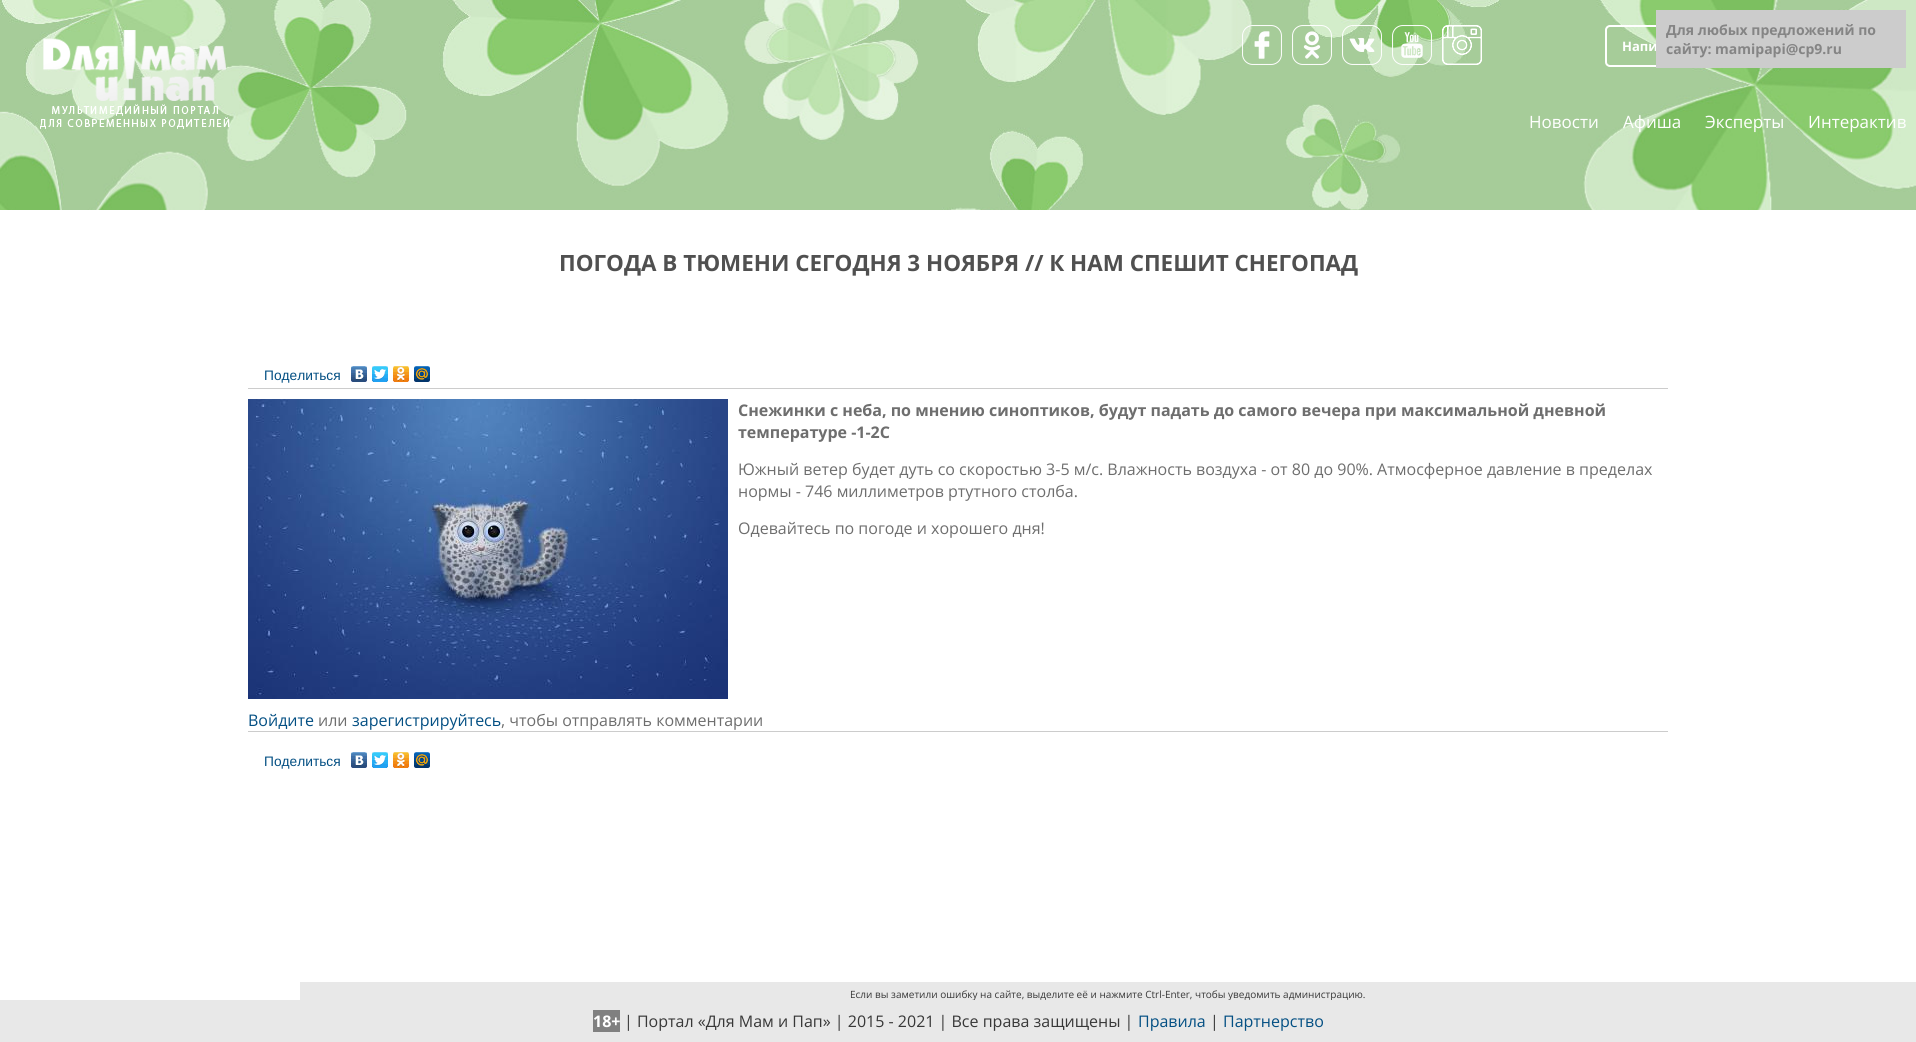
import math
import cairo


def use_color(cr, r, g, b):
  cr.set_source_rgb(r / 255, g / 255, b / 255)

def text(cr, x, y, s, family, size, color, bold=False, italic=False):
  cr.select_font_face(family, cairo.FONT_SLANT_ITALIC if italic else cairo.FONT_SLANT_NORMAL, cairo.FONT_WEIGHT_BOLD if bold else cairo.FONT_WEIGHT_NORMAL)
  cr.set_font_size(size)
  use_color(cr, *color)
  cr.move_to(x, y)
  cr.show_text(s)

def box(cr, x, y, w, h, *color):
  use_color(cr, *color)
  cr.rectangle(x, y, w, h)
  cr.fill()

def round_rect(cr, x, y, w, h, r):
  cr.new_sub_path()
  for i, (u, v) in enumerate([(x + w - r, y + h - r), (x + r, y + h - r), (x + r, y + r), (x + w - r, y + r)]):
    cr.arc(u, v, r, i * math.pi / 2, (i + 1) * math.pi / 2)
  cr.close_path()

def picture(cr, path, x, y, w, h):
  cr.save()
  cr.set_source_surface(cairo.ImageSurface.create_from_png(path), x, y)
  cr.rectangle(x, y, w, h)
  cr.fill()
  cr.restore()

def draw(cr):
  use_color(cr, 255, 255, 255)
  cr.paint()
  picture(cr, "img_01.png", 0, 0, 1916, 210)
  picture(cr, "img_02.png", 40, 30, 190, 99)
  picture(cr, "img_03.png", 1242, 25, 40, 40)
  picture(cr, "img_04.png", 1292, 25, 40, 40)
  picture(cr, "img_05.png", 1342, 25, 40, 40)
  picture(cr, "img_06.png", 1392, 25, 40, 40)
  picture(cr, "img_07.png", 1442, 25, 40, 40)
  round_rect(cr, 1606, 26, 128, 40, 4)
  use_color(cr, 255, 255, 255)
  cr.stroke()
  box(cr, 248, 388, 1420, 1, 204, 204, 204)
  picture(cr, "img_08.png", 351, 366, 16, 16)
  picture(cr, "img_09.png", 372, 366, 16, 16)
  picture(cr, "img_10.png", 393, 366, 16, 16)
  picture(cr, "img_11.png", 414, 366, 16, 16)
  picture(cr, "img_12.png", 248, 399, 480, 300)
  box(cr, 248, 731, 1420, 1, 204, 204, 204)
  picture(cr, "img_08.png", 351, 752, 16, 16)
  picture(cr, "img_09.png", 372, 752, 16, 16)
  picture(cr, "img_10.png", 393, 752, 16, 16)
  picture(cr, "img_11.png", 414, 752, 16, 16)
  box(cr, 300, 982, 1616, 18, 232, 232, 232)
  text(cr, 1622, 51, "Напи", "Open Sans", 13, (255, 255, 255), bold=True)
  box(cr, 1656, 10, 250, 58, 204, 204, 204)
  text(cr, 1666, 54, "сайту: mamipapi@cp9.ru", "Open Sans", 14, (133, 133, 133), bold=True)
  text(cr, 1666, 35, "Для любых предложений по", "Open Sans", 14, (133, 133, 133), bold=True)
  text(cr, 1529, 128, "Новости", "Open Sans", 17, (255, 255, 255))
  text(cr, 1623, 128, "Афиша", "Open Sans", 17, (255, 255, 255))
  text(cr, 1705, 128, "Эксперты", "Open Sans", 17, (255, 255, 255))
  text(cr, 1808, 128, "Интерактив", "Open Sans", 17, (255, 255, 255))
  text(cr, 559, 271, "ПОГОДА В ТЮМЕНИ СЕГОДНЯ 3 НОЯБРЯ // К НАМ СПЕШИТ СНЕГОПАД", "Open Sans", 22.4, (80, 80, 80), bold=True)
  text(cr, 264, 380, "Поделиться", "Liberation Sans", 13.75, (3, 79, 131))
  text(cr, 738, 416, "Снежинки с неба, по мнению синоптиков, будут падать до самого вечера при максимальной дневной", "Open Sans", 16, (110, 110, 110), bold=True)
  text(cr, 738, 438, "температуре -1-2С", "Open Sans", 16, (110, 110, 110), bold=True)
  text(cr, 738, 475, "Южный ветер будет дуть со скоростью 3-5 м/с. Влажность воздуха - от 80 до 90%. Атмосферное давление в пределах", "Open Sans", 16, (110, 110, 110))
  text(cr, 738, 497, "нормы - 746 миллиметров ртутного столба.", "Open Sans", 16, (110, 110, 110))
  text(cr, 738, 534, "Одевайтесь по погоде и хорошего дня!", "Open Sans", 16, (110, 110, 110))
  text(cr, 248, 726, "Войдите", "Open Sans", 16, (3, 79, 131))
  text(cr, 318, 726, "или", "Open Sans", 16, (110, 110, 110))
  text(cr, 352, 726, "зарегистрируйтесь", "Open Sans", 16, (3, 79, 131))
  text(cr, 501, 726, ", чтобы отправлять комментарии", "Open Sans", 16, (110, 110, 110))
  text(cr, 264, 766, "Поделиться", "Liberation Sans", 13.75, (3, 79, 131))
  text(cr, 850, 998, "Если вы заметили ошибку на сайте, выделите её и нажмите Ctrl-Enter, чтобы уведомить администрацию.", "Open Sans", 10, (56, 56, 56))
  box(cr, 0, 1000, 1916, 42, 232, 232, 232)
  box(cr, 593, 1010, 27, 22, 128, 128, 128)
  text(cr, 593, 1027, "18+", "Open Sans", 16, (255, 255, 255), bold=True)
  text(cr, 624, 1027, "| Портал «Для Мам и Пап» | 2015 - 2021 | Все права защищены |", "Open Sans", 16, (56, 56, 56))
  text(cr, 1138, 1027, "Правила", "Open Sans", 16, (3, 79, 131))
  text(cr, 1210, 1027, "|", "Open Sans", 16, (56, 56, 56))
  text(cr, 1223, 1027, "Партнерство", "Open Sans", 16, (3, 79, 131))


surface = cairo.ImageSurface(cairo.FORMAT_RGB24, 1916, 1042)
cr = cairo.Context(surface)
options = cairo.FontOptions()
options.set_hint_metrics(cairo.HINT_METRICS_OFF)
options.set_hint_style(cairo.HINT_STYLE_NONE)
cr.set_font_options(options)
cr.set_miter_limit(4)
draw(cr)
surface.write_to_png("out.png")
